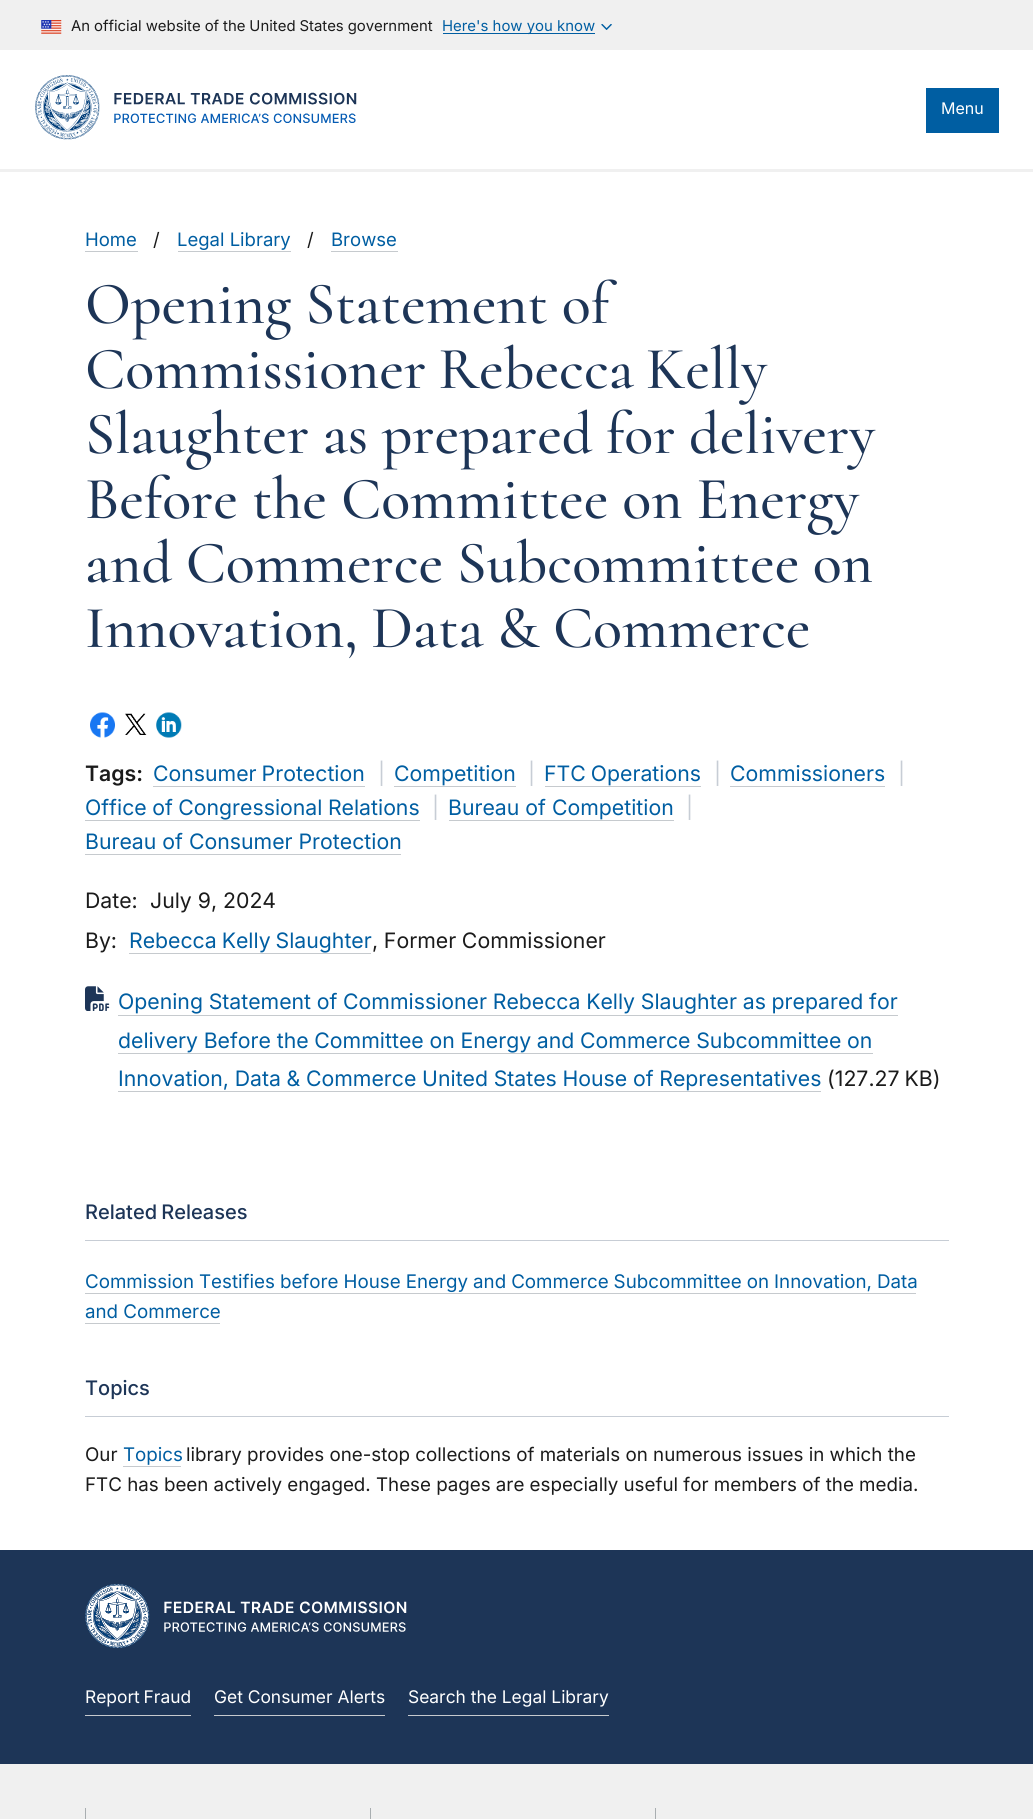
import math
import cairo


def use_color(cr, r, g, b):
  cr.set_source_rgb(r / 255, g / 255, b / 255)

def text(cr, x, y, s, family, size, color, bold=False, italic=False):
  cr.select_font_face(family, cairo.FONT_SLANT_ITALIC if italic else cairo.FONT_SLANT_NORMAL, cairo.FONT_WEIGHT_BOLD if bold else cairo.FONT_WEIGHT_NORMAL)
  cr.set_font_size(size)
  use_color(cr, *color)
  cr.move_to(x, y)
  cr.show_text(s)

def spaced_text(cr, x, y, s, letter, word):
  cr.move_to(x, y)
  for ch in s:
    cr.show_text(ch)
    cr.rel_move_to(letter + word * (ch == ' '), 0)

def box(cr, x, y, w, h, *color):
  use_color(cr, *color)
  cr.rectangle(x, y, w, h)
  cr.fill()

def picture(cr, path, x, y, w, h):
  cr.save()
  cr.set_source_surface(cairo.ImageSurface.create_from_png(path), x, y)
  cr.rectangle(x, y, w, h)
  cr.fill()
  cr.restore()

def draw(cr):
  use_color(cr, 255, 255, 255)
  cr.paint()
  box(cr, 0, 0, 1033, 50, 240, 240, 240)
  picture(cr, "img_01.png", 41, 20, 21, 14)
  box(cr, 443, 33, 152, 1, 0, 94, 162)
  picture(cr, "img_02.png", 601, 24, 11, 6)
  picture(cr, "img_03.png", 35, 75, 322, 65)
  box(cr, 926, 88, 73, 45, 0, 94, 162)
  box(cr, 0, 169, 1033, 3, 240, 240, 240)
  box(cr, 85, 251, 53, 1, 198, 202, 206)
  box(cr, 178, 251, 113, 1, 198, 202, 206)
  box(cr, 331, 251, 67, 1, 198, 202, 206)
  picture(cr, "img_04.png", 90, 712, 25, 26)
  picture(cr, "img_05.png", 125, 713, 22, 22)
  picture(cr, "img_06.png", 156, 712, 26, 26)
  box(cr, 153, 786, 212, 1, 198, 202, 206)
  box(cr, 394, 786, 122, 1, 198, 202, 206)
  box(cr, 545, 786, 156, 1, 198, 202, 206)
  box(cr, 730, 786, 155, 1, 198, 202, 206)
  box(cr, 85, 820, 335, 1, 198, 202, 206)
  box(cr, 449, 820, 225, 1, 198, 202, 206)
  box(cr, 85, 854, 316, 1, 198, 202, 206)
  box(cr, 129, 953, 242, 1, 198, 202, 206)
  picture(cr, "img_07.png", 85, 986, 25, 25)
  box(cr, 118, 1015, 780, 1, 198, 202, 206)
  box(cr, 118, 1053, 755, 1, 198, 202, 206)
  box(cr, 118, 1091, 703, 1, 198, 202, 206)
  box(cr, 85, 1240, 864, 1, 199, 205, 213)
  box(cr, 85, 1293, 831, 1, 198, 202, 206)
  box(cr, 85, 1323, 135, 1, 198, 202, 206)
  box(cr, 85, 1416, 864, 1, 199, 205, 213)
  box(cr, 123, 1466, 58, 1, 198, 202, 206)
  box(cr, 0, 1550, 1033, 214, 29, 53, 87)
  picture(cr, "img_08.png", 85, 1584, 322, 64)
  box(cr, 85, 1715, 106, 1, 198, 202, 206)
  box(cr, 214, 1715, 171, 1, 198, 202, 206)
  box(cr, 408, 1715, 201, 1, 198, 202, 206)
  box(cr, 0, 1764, 1033, 55, 240, 240, 240)
  box(cr, 85, 1808, 1, 11, 169, 174, 177)
  box(cr, 370, 1808, 1, 11, 169, 174, 177)
  box(cr, 655, 1808, 1, 11, 169, 174, 177)
  cr.select_font_face("Inter")
  cr.set_font_size(14.9)
  use_color(cr, 27, 27, 27)
  spaced_text(cr, 71, 31, "An official website of the United States government", 0, -0.25)
  text(cr, 442, 31, "Here's how you know", "Inter", 14.9, (0, 94, 162))
  text(cr, 941, 114, "Menu", "Inter", 16, (255, 255, 255))
  text(cr, 85, 246, "Home", "Inter", 18.5, (0, 94, 162))
  text(cr, 153, 246, "/", "Inter", 18.5, (27, 27, 27))
  text(cr, 177, 246, "Legal Library", "Inter", 18.5, (0, 94, 162))
  text(cr, 307, 246, "/", "Inter", 18.5, (27, 27, 27))
  text(cr, 331, 246, "Browse", "Inter", 18.5, (0, 94, 162))
  text(cr, 85, 323, "Opening Statement of", "Cormorant Medium", 60, (29, 53, 87))
  spaced_text(cr, 85, 388, "Commissioner Rebecca Kelly", 0, -2)
  spaced_text(cr, 85, 453, "Slaughter as prepared for delivery", 0, -0.5)
  text(cr, 85, 518, "Before the Committee on Energy", "Cormorant Medium", 60, (29, 53, 87))
  spaced_text(cr, 85, 582, "and Commerce Subcommittee on", 0, -0.5)
  spaced_text(cr, 85, 647, "Innovation, Data & Commerce", 0, -0.5)
  text(cr, 85, 781, "Tags:", "Inter SemiBold", 21.25, (27, 27, 27))
  cr.select_font_face("Inter")
  use_color(cr, 0, 94, 162)
  spaced_text(cr, 153, 781, "Consumer Protection", 0, -1)
  text(cr, 378, 781, "|", "Inter", 21.25, (199, 205, 213))
  text(cr, 394, 781, "Competition", "Inter", 21.25, (0, 94, 162))
  text(cr, 528, 781, "|", "Inter", 21.25, (199, 205, 213))
  use_color(cr, 0, 94, 162)
  spaced_text(cr, 544, 781, "FTC Operations", 0, -1)
  text(cr, 714, 781, "|", "Inter", 21.25, (199, 205, 213))
  text(cr, 730, 781, "Commissioners", "Inter", 21.25, (0, 94, 162))
  text(cr, 898, 781, "|", "Inter", 21.25, (199, 205, 213))
  use_color(cr, 0, 94, 162)
  spaced_text(cr, 85, 815, "Office of Congressional Relations", 0, -0.5)
  text(cr, 432, 815, "|", "Inter", 21.25, (199, 205, 213))
  text(cr, 448, 815, "Bureau of Competition", "Inter", 21.25, (0, 94, 162))
  text(cr, 686, 815, "|", "Inter", 21.25, (199, 205, 213))
  text(cr, 85, 849, "Bureau of Consumer Protection", "Inter", 21.25, (0, 94, 162))
  text(cr, 85, 908, "Date:", "Inter", 21.25, (27, 27, 27))
  text(cr, 150, 908, "July 9, 2024", "Inter", 21.25, (27, 27, 27))
  text(cr, 85, 948, "By:", "Inter", 21.25, (27, 27, 27))
  use_color(cr, 0, 94, 162)
  spaced_text(cr, 129, 948, "Rebecca Kelly Slaughter", 0, -1)
  use_color(cr, 27, 27, 27)
  spaced_text(cr, 372, 948, ", Former Commissioner", 0, -0.25)
  use_color(cr, 0, 94, 162)
  spaced_text(cr, 118, 1009, "Opening Statement of Commissioner Rebecca Kelly Slaughter as prepared for", 0, -0.25)
  spaced_text(cr, 118, 1048, "delivery Before the Committee on Energy and Commerce Subcommittee on", 0, -0.25)
  spaced_text(cr, 118, 1086, "Innovation, Data & Commerce United States House of Representatives", 0, -0.25)
  use_color(cr, 27, 27, 27)
  spaced_text(cr, 827, 1086, "(127.27 KB)", 0, -1)
  cr.select_font_face("Inter Medium")
  cr.set_font_size(20)
  use_color(cr, 29, 53, 87)
  spaced_text(cr, 85, 1219, "Related Releases", 0, -1)
  cr.select_font_face("Inter")
  cr.set_font_size(18.75)
  use_color(cr, 0, 94, 162)
  spaced_text(cr, 85, 1288, "Commission Testifies before House Energy and Commerce Subcommittee on Innovation, Data", 0, -0.25)
  text(cr, 85, 1318, "and Commerce", "Inter", 18.75, (0, 94, 162))
  text(cr, 85, 1395, "Topics", "Inter Medium", 20, (29, 53, 87))
  text(cr, 85, 1461, "Our", "Inter", 18.75, (27, 27, 27))
  text(cr, 123, 1461, "Topics", "Inter", 18.75, (0, 94, 162))
  text(cr, 186, 1461, "library provides one-stop collections of materials on numerous issues in which the", "Inter", 18.75, (27, 27, 27))
  text(cr, 85, 1491, "FTC has been actively engaged. These pages are especially useful for members of the media.", "Inter", 18.75, (27, 27, 27))
  cr.set_font_size(17.4)
  use_color(cr, 255, 255, 255)
  spaced_text(cr, 85, 1703, "Report Fraud", 0, -1)
  text(cr, 214, 1703, "Get Consumer Alerts", "Inter", 17.4, (255, 255, 255))
  text(cr, 408, 1703, "Search the Legal Library", "Inter", 17.4, (255, 255, 255))


surface = cairo.ImageSurface(cairo.FORMAT_RGB24, 1033, 1819)
cr = cairo.Context(surface)
options = cairo.FontOptions()
options.set_hint_metrics(cairo.HINT_METRICS_OFF)
options.set_hint_style(cairo.HINT_STYLE_NONE)
cr.set_font_options(options)
cr.set_miter_limit(4)
draw(cr)
surface.write_to_png("out.png")
